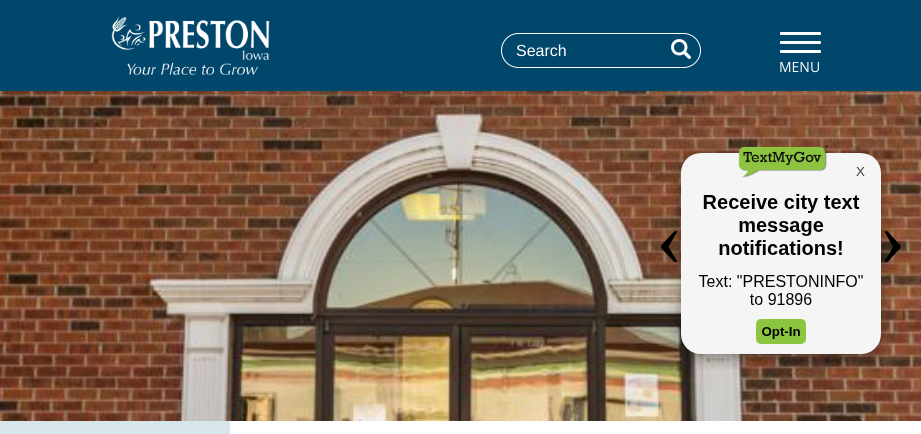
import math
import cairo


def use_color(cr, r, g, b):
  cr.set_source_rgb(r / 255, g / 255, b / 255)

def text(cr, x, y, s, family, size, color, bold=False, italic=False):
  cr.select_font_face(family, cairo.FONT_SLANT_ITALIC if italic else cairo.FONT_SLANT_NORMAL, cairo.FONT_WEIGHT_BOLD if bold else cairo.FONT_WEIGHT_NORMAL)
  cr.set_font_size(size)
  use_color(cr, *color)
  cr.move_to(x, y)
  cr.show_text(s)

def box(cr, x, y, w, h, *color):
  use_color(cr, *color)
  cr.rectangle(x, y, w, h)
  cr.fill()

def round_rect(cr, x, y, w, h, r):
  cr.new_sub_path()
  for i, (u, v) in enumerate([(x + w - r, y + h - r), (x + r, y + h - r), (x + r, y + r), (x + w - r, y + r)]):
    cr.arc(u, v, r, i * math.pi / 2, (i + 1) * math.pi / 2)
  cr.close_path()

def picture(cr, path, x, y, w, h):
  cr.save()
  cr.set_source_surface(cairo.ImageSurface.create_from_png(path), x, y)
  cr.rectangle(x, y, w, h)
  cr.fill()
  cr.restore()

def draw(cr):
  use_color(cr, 255, 255, 255)
  cr.paint()
  box(cr, 0, 0, 921, 91, 0, 71, 107)
  picture(cr, "img_01.png", 111, 16, 159, 59)
  round_rect(cr, 501.5, 33.5, 199, 34, 17)
  use_color(cr, 255, 255, 255)
  cr.set_line_width(1)
  cr.stroke()
  picture(cr, "img_02.png", 671, 39, 20, 20)
  round_rect(cr, 780, 32, 41, 3, 1)
  cr.fill()
  round_rect(cr, 780, 41, 41, 3, 1)
  cr.fill()
  round_rect(cr, 780, 50, 41, 3, 1)
  cr.fill()
  picture(cr, "img_03.png", 0, 91, 921, 330)
  box(cr, 0, 421, 230, 13, 215, 230, 234)
  picture(cr, "img_04.png", 661, 145, 240, 225)
  text(cr, 516, 56, "Search", "Liberation Sans", 16, (255, 255, 255))
  text(cr, 779, 72, "MENU", "Open Sans", 14, (255, 255, 255))


surface = cairo.ImageSurface(cairo.FORMAT_RGB24, 921, 434)
cr = cairo.Context(surface)
options = cairo.FontOptions()
options.set_hint_metrics(cairo.HINT_METRICS_OFF)
options.set_hint_style(cairo.HINT_STYLE_NONE)
cr.set_font_options(options)
cr.set_miter_limit(4)
draw(cr)
surface.write_to_png("out.png")
